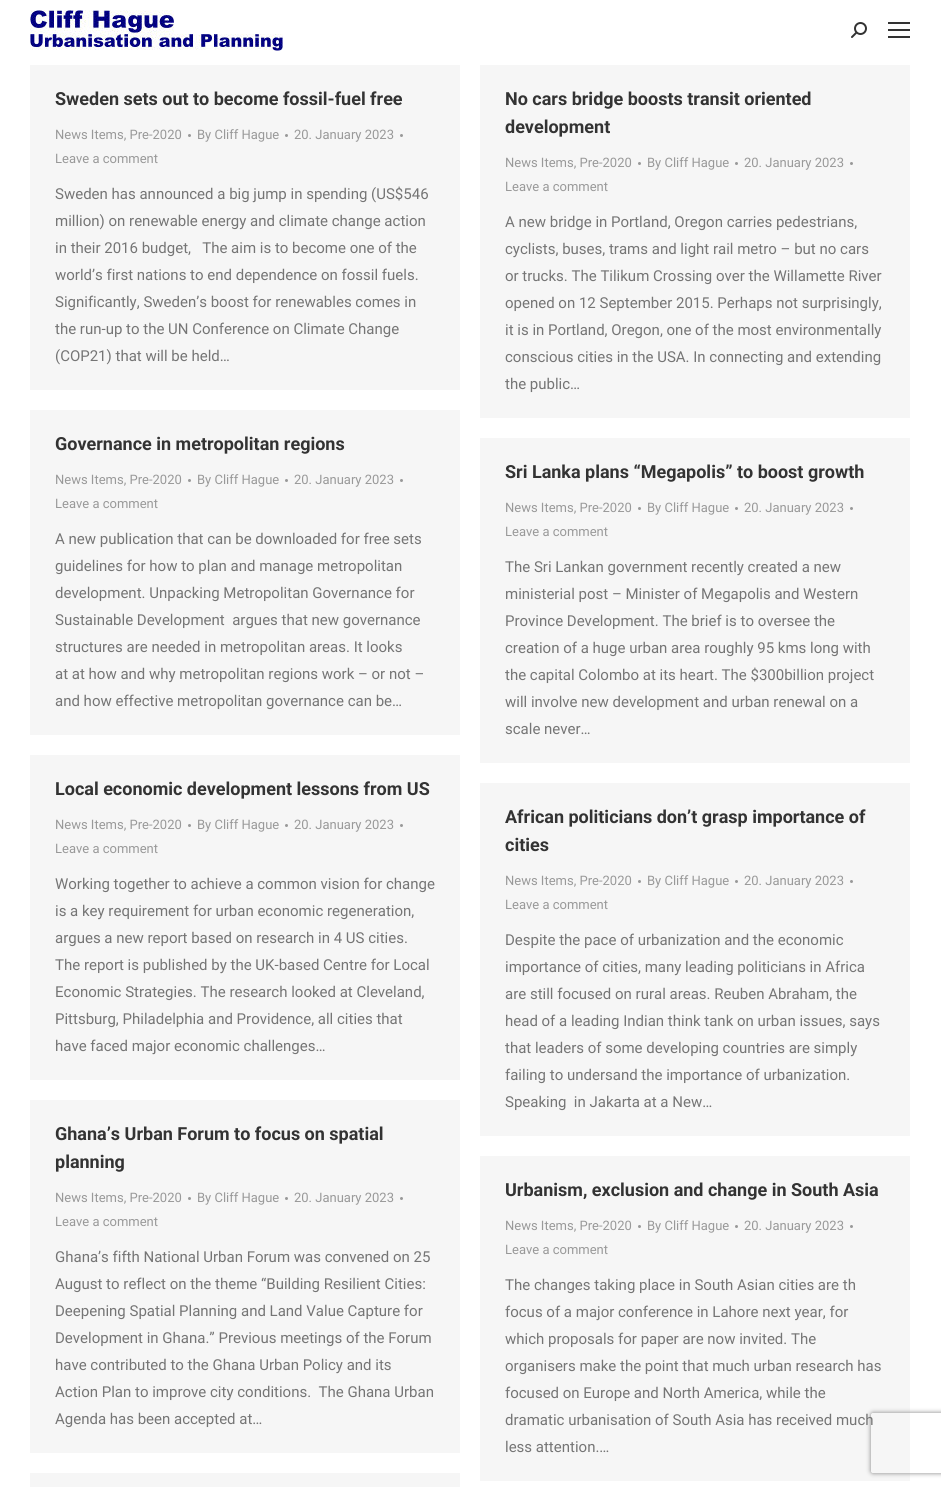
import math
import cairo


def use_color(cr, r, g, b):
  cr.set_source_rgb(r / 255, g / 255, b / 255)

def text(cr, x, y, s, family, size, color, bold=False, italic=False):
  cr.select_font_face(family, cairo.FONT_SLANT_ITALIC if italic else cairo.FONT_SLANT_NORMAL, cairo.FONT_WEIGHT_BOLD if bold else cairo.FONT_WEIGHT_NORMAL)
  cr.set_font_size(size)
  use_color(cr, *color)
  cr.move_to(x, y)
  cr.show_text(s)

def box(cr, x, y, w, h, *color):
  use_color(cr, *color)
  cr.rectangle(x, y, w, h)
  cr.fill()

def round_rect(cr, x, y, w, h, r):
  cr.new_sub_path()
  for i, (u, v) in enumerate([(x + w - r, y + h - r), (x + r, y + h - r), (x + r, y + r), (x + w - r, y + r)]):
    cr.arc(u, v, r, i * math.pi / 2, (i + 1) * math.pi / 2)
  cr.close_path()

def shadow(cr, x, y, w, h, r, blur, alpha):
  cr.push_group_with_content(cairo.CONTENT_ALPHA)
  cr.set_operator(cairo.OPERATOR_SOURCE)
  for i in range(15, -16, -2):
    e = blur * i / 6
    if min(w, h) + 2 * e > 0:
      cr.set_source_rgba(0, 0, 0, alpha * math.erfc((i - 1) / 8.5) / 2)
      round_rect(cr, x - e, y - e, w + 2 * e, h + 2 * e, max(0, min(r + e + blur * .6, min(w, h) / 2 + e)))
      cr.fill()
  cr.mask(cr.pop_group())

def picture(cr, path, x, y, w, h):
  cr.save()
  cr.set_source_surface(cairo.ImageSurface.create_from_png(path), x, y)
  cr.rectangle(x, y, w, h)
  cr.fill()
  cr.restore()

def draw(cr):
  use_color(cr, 255, 255, 255)
  cr.paint()
  picture(cr, "img_01.png", 30, 10, 253, 41)
  picture(cr, "img_02.png", 851, 22, 16, 16)
  box(cr, 888, 22, 22, 2, 51, 51, 51)
  box(cr, 888, 29, 22, 2, 51, 51, 51)
  box(cr, 888, 36, 22, 2, 51, 51, 51)
  box(cr, 30, 65, 430, 325, 246, 246, 246)
  use_color(cr, 153, 153, 153)
  cr.arc(189.5, 135.5, 1.5, 0, 2 * math.pi)
  cr.fill()
  cr.arc(286.5, 135.5, 1.5, 0, 2 * math.pi)
  cr.fill()
  cr.arc(401.5, 135.5, 1.5, 0, 2 * math.pi)
  cr.fill()
  box(cr, 480, 65, 430, 353, 246, 246, 246)
  use_color(cr, 153, 153, 153)
  cr.arc(639.5, 163.5, 1.5, 0, 2 * math.pi)
  cr.fill()
  cr.arc(736.5, 163.5, 1.5, 0, 2 * math.pi)
  cr.fill()
  cr.arc(851.5, 163.5, 1.5, 0, 2 * math.pi)
  cr.fill()
  box(cr, 30, 410, 430, 325, 246, 246, 246)
  use_color(cr, 153, 153, 153)
  cr.arc(189.5, 480.5, 1.5, 0, 2 * math.pi)
  cr.fill()
  cr.arc(286.5, 480.5, 1.5, 0, 2 * math.pi)
  cr.fill()
  cr.arc(401.5, 480.5, 1.5, 0, 2 * math.pi)
  cr.fill()
  box(cr, 480, 438, 430, 325, 246, 246, 246)
  use_color(cr, 153, 153, 153)
  cr.arc(639.5, 508.5, 1.5, 0, 2 * math.pi)
  cr.fill()
  cr.arc(736.5, 508.5, 1.5, 0, 2 * math.pi)
  cr.fill()
  cr.arc(851.5, 508.5, 1.5, 0, 2 * math.pi)
  cr.fill()
  box(cr, 30, 755, 430, 325, 246, 246, 246)
  use_color(cr, 153, 153, 153)
  cr.arc(189.5, 825.5, 1.5, 0, 2 * math.pi)
  cr.fill()
  cr.arc(286.5, 825.5, 1.5, 0, 2 * math.pi)
  cr.fill()
  cr.arc(401.5, 825.5, 1.5, 0, 2 * math.pi)
  cr.fill()
  box(cr, 480, 783, 430, 353, 246, 246, 246)
  use_color(cr, 153, 153, 153)
  cr.arc(639.5, 881.5, 1.5, 0, 2 * math.pi)
  cr.fill()
  cr.arc(736.5, 881.5, 1.5, 0, 2 * math.pi)
  cr.fill()
  cr.arc(851.5, 881.5, 1.5, 0, 2 * math.pi)
  cr.fill()
  box(cr, 30, 1100, 430, 353, 246, 246, 246)
  use_color(cr, 153, 153, 153)
  cr.arc(189.5, 1198.5, 1.5, 0, 2 * math.pi)
  cr.fill()
  cr.arc(286.5, 1198.5, 1.5, 0, 2 * math.pi)
  cr.fill()
  cr.arc(401.5, 1198.5, 1.5, 0, 2 * math.pi)
  cr.fill()
  box(cr, 480, 1156, 430, 325, 246, 246, 246)
  use_color(cr, 153, 153, 153)
  cr.arc(639.5, 1226.5, 1.5, 0, 2 * math.pi)
  cr.fill()
  cr.arc(736.5, 1226.5, 1.5, 0, 2 * math.pi)
  cr.fill()
  cr.arc(851.5, 1226.5, 1.5, 0, 2 * math.pi)
  cr.fill()
  box(cr, 30, 1473, 430, 14, 246, 246, 246)
  cr.save()
  cr.set_fill_rule(cairo.FILL_RULE_EVEN_ODD)
  cr.new_path()
  cr.move_to(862, 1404)
  cr.line_to(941, 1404)
  cr.line_to(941, 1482)
  cr.line_to(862, 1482)
  cr.close_path()
  cr.move_to(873, 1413)
  cr.line_to(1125, 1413)
  cr.curve_to(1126, 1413, 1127, 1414, 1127, 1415)
  cr.line_to(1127, 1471)
  cr.curve_to(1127, 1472, 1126, 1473, 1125, 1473)
  cr.line_to(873, 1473)
  cr.curve_to(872, 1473, 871, 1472, 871, 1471)
  cr.line_to(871, 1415)
  cr.curve_to(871, 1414, 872, 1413, 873, 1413)
  cr.close_path()
  cr.clip()
  use_color(cr, 128, 128, 128)
  shadow(cr, 871, 1413, 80, 60, 2, 2.5, 1)
  cr.restore()
  text(cr, 55, 105, "Sweden sets out to become fossil-fuel free", "Roboto", 18, (51, 51, 51), bold=True)
  text(cr, 55, 139, "News Items, Pre-2020", "Roboto", 13, (153, 153, 153))
  text(cr, 197, 139, "By Cliff Hague", "Roboto", 13, (153, 153, 153))
  text(cr, 294, 139, "20. January 2023", "Roboto", 13, (153, 153, 153))
  text(cr, 55, 163, "Leave a comment", "Roboto", 13, (153, 153, 153))
  text(cr, 55, 199, "Sweden has announced a big jump in spending (US$546", "Roboto", 15, (117, 117, 117))
  text(cr, 55, 226, "million) on renewable energy and climate change action", "Roboto", 15, (117, 117, 117))
  text(cr, 55, 253, "in their 2016 budget,   The aim is to become one of the", "Roboto", 15, (117, 117, 117))
  text(cr, 55, 280, "world’s first nations to end dependence on fossil fuels.", "Roboto", 15, (117, 117, 117))
  text(cr, 55, 307, "Significantly, Sweden’s boost for renewables comes in", "Roboto", 15, (117, 117, 117))
  text(cr, 55, 334, "the run-up to the UN Conference on Climate Change", "Roboto", 15, (117, 117, 117))
  text(cr, 55, 361, "(COP21) that will be held…", "Roboto", 15, (117, 117, 117))
  text(cr, 505, 105, "No cars bridge boosts transit oriented", "Roboto", 18, (51, 51, 51), bold=True)
  text(cr, 505, 133, "development", "Roboto", 18, (51, 51, 51), bold=True)
  text(cr, 505, 167, "News Items, Pre-2020", "Roboto", 13, (153, 153, 153))
  text(cr, 647, 167, "By Cliff Hague", "Roboto", 13, (153, 153, 153))
  text(cr, 744, 167, "20. January 2023", "Roboto", 13, (153, 153, 153))
  text(cr, 505, 191, "Leave a comment", "Roboto", 13, (153, 153, 153))
  text(cr, 505, 227, "A new bridge in Portland, Oregon carries pedestrians,", "Roboto", 15, (117, 117, 117))
  text(cr, 505, 254, "cyclists, buses, trams and light rail metro – but no cars", "Roboto", 15, (117, 117, 117))
  text(cr, 505, 281, "or trucks. The Tilikum Crossing over the Willamette River", "Roboto", 15, (117, 117, 117))
  text(cr, 505, 308, "opened on 12 September 2015. Perhaps not surprisingly,", "Roboto", 15, (117, 117, 117))
  text(cr, 505, 335, "it is in Portland, Oregon, one of the most environmentally", "Roboto", 15, (117, 117, 117))
  text(cr, 505, 362, "conscious cities in the USA. In connecting and extending", "Roboto", 15, (117, 117, 117))
  text(cr, 505, 389, "the public…", "Roboto", 15, (117, 117, 117))
  text(cr, 55, 450, "Governance in metropolitan regions", "Roboto", 18, (51, 51, 51), bold=True)
  text(cr, 55, 484, "News Items, Pre-2020", "Roboto", 13, (153, 153, 153))
  text(cr, 197, 484, "By Cliff Hague", "Roboto", 13, (153, 153, 153))
  text(cr, 294, 484, "20. January 2023", "Roboto", 13, (153, 153, 153))
  text(cr, 55, 508, "Leave a comment", "Roboto", 13, (153, 153, 153))
  text(cr, 55, 544, "A new publication that can be downloaded for free sets", "Roboto", 15, (117, 117, 117))
  text(cr, 55, 571, "guidelines for how to plan and manage metropolitan", "Roboto", 15, (117, 117, 117))
  text(cr, 55, 598, "development. Unpacking Metropolitan Governance for", "Roboto", 15, (117, 117, 117))
  text(cr, 55, 625, "Sustainable Development  argues that new governance", "Roboto", 15, (117, 117, 117))
  text(cr, 55, 652, "structures are needed in metropolitan areas. It looks", "Roboto", 15, (117, 117, 117))
  text(cr, 55, 679, "at at how and why metropolitan regions work – or not –", "Roboto", 15, (117, 117, 117))
  text(cr, 55, 706, "and how effective metropolitan governance can be…", "Roboto", 15, (117, 117, 117))
  text(cr, 505, 478, "Sri Lanka plans “Megapolis” to boost growth", "Roboto", 18, (51, 51, 51), bold=True)
  text(cr, 505, 512, "News Items, Pre-2020", "Roboto", 13, (153, 153, 153))
  text(cr, 647, 512, "By Cliff Hague", "Roboto", 13, (153, 153, 153))
  text(cr, 744, 512, "20. January 2023", "Roboto", 13, (153, 153, 153))
  text(cr, 505, 536, "Leave a comment", "Roboto", 13, (153, 153, 153))
  text(cr, 505, 572, "The Sri Lankan government recently created a new", "Roboto", 15, (117, 117, 117))
  text(cr, 505, 599, "ministerial post – Minister of Megapolis and Western", "Roboto", 15, (117, 117, 117))
  text(cr, 505, 626, "Province Development. The brief is to oversee the", "Roboto", 15, (117, 117, 117))
  text(cr, 505, 653, "creation of a huge urban area roughly 95 kms long with", "Roboto", 15, (117, 117, 117))
  text(cr, 505, 680, "the capital Colombo at its heart. The $300billion project", "Roboto", 15, (117, 117, 117))
  text(cr, 505, 707, "will involve new development and urban renewal on a", "Roboto", 15, (117, 117, 117))
  text(cr, 505, 734, "scale never…", "Roboto", 15, (117, 117, 117))
  text(cr, 55, 795, "Local economic development lessons from US", "Roboto", 18, (51, 51, 51), bold=True)
  text(cr, 55, 829, "News Items, Pre-2020", "Roboto", 13, (153, 153, 153))
  text(cr, 197, 829, "By Cliff Hague", "Roboto", 13, (153, 153, 153))
  text(cr, 294, 829, "20. January 2023", "Roboto", 13, (153, 153, 153))
  text(cr, 55, 853, "Leave a comment", "Roboto", 13, (153, 153, 153))
  text(cr, 55, 889, "Working together to achieve a common vision for change", "Roboto", 15, (117, 117, 117))
  text(cr, 55, 916, "is a key requirement for urban economic regeneration,", "Roboto", 15, (117, 117, 117))
  text(cr, 55, 943, "argues a new report based on research in 4 US cities.", "Roboto", 15, (117, 117, 117))
  text(cr, 55, 970, "The report is published by the UK-based Centre for Local", "Roboto", 15, (117, 117, 117))
  text(cr, 55, 997, "Economic Strategies. The research looked at Cleveland,", "Roboto", 15, (117, 117, 117))
  text(cr, 55, 1024, "Pittsburg, Philadelphia and Providence, all cities that", "Roboto", 15, (117, 117, 117))
  text(cr, 55, 1051, "have faced major economic challenges…", "Roboto", 15, (117, 117, 117))
  text(cr, 505, 823, "African politicians don’t grasp importance of", "Roboto", 18, (51, 51, 51), bold=True)
  text(cr, 505, 851, "cities", "Roboto", 18, (51, 51, 51), bold=True)
  text(cr, 505, 885, "News Items, Pre-2020", "Roboto", 13, (153, 153, 153))
  text(cr, 647, 885, "By Cliff Hague", "Roboto", 13, (153, 153, 153))
  text(cr, 744, 885, "20. January 2023", "Roboto", 13, (153, 153, 153))
  text(cr, 505, 909, "Leave a comment", "Roboto", 13, (153, 153, 153))
  text(cr, 505, 945, "Despite the pace of urbanization and the economic", "Roboto", 15, (117, 117, 117))
  text(cr, 505, 972, "importance of cities, many leading politicians in Africa", "Roboto", 15, (117, 117, 117))
  text(cr, 505, 999, "are still focused on rural areas. Reuben Abraham, the", "Roboto", 15, (117, 117, 117))
  text(cr, 505, 1026, "head of a leading Indian think tank on urban issues, says", "Roboto", 15, (117, 117, 117))
  text(cr, 505, 1053, "that leaders of some developing countries are simply", "Roboto", 15, (117, 117, 117))
  text(cr, 505, 1080, "failing to undersand the importance of urbanization.", "Roboto", 15, (117, 117, 117))
  text(cr, 505, 1107, "Speaking  in Jakarta at a New…", "Roboto", 15, (117, 117, 117))
  text(cr, 55, 1140, "Ghana’s Urban Forum to focus on spatial", "Roboto", 18, (51, 51, 51), bold=True)
  text(cr, 55, 1168, "planning", "Roboto", 18, (51, 51, 51), bold=True)
  text(cr, 55, 1202, "News Items, Pre-2020", "Roboto", 13, (153, 153, 153))
  text(cr, 197, 1202, "By Cliff Hague", "Roboto", 13, (153, 153, 153))
  text(cr, 294, 1202, "20. January 2023", "Roboto", 13, (153, 153, 153))
  text(cr, 55, 1226, "Leave a comment", "Roboto", 13, (153, 153, 153))
  text(cr, 55, 1262, "Ghana’s fifth National Urban Forum was convened on 25", "Roboto", 15, (117, 117, 117))
  text(cr, 55, 1289, "August to reflect on the theme “Building Resilient Cities:", "Roboto", 15, (117, 117, 117))
  text(cr, 55, 1316, "Deepening Spatial Planning and Land Value Capture for", "Roboto", 15, (117, 117, 117))
  text(cr, 55, 1343, "Development in Ghana.” Previous meetings of the Forum", "Roboto", 15, (117, 117, 117))
  text(cr, 55, 1370, "have contributed to the Ghana Urban Policy and its", "Roboto", 15, (117, 117, 117))
  text(cr, 55, 1397, "Action Plan to improve city conditions.  The Ghana Urban", "Roboto", 15, (117, 117, 117))
  text(cr, 55, 1424, "Agenda has been accepted at…", "Roboto", 15, (117, 117, 117))
  text(cr, 505, 1196, "Urbanism, exclusion and change in South Asia", "Roboto", 18, (51, 51, 51), bold=True)
  text(cr, 505, 1230, "News Items, Pre-2020", "Roboto", 13, (153, 153, 153))
  text(cr, 647, 1230, "By Cliff Hague", "Roboto", 13, (153, 153, 153))
  text(cr, 744, 1230, "20. January 2023", "Roboto", 13, (153, 153, 153))
  text(cr, 505, 1254, "Leave a comment", "Roboto", 13, (153, 153, 153))
  text(cr, 505, 1290, "The changes taking place in South Asian cities are th", "Roboto", 15, (117, 117, 117))
  text(cr, 505, 1317, "focus of a major conference in Lahore next year, for", "Roboto", 15, (117, 117, 117))
  text(cr, 505, 1344, "which proposals for paper are now invited. The", "Roboto", 15, (117, 117, 117))
  text(cr, 505, 1371, "organisers make the point that much urban research has", "Roboto", 15, (117, 117, 117))
  text(cr, 505, 1398, "focused on Europe and North America, while the", "Roboto", 15, (117, 117, 117))
  text(cr, 505, 1425, "dramatic urbanisation of South Asia has received much", "Roboto", 15, (117, 117, 117))
  text(cr, 505, 1452, "less attention.…", "Roboto", 15, (117, 117, 117))


surface = cairo.ImageSurface(cairo.FORMAT_RGB24, 941, 1487)
cr = cairo.Context(surface)
options = cairo.FontOptions()
options.set_hint_metrics(cairo.HINT_METRICS_OFF)
options.set_hint_style(cairo.HINT_STYLE_NONE)
cr.set_font_options(options)
cr.set_miter_limit(4)
draw(cr)
surface.write_to_png("out.png")
